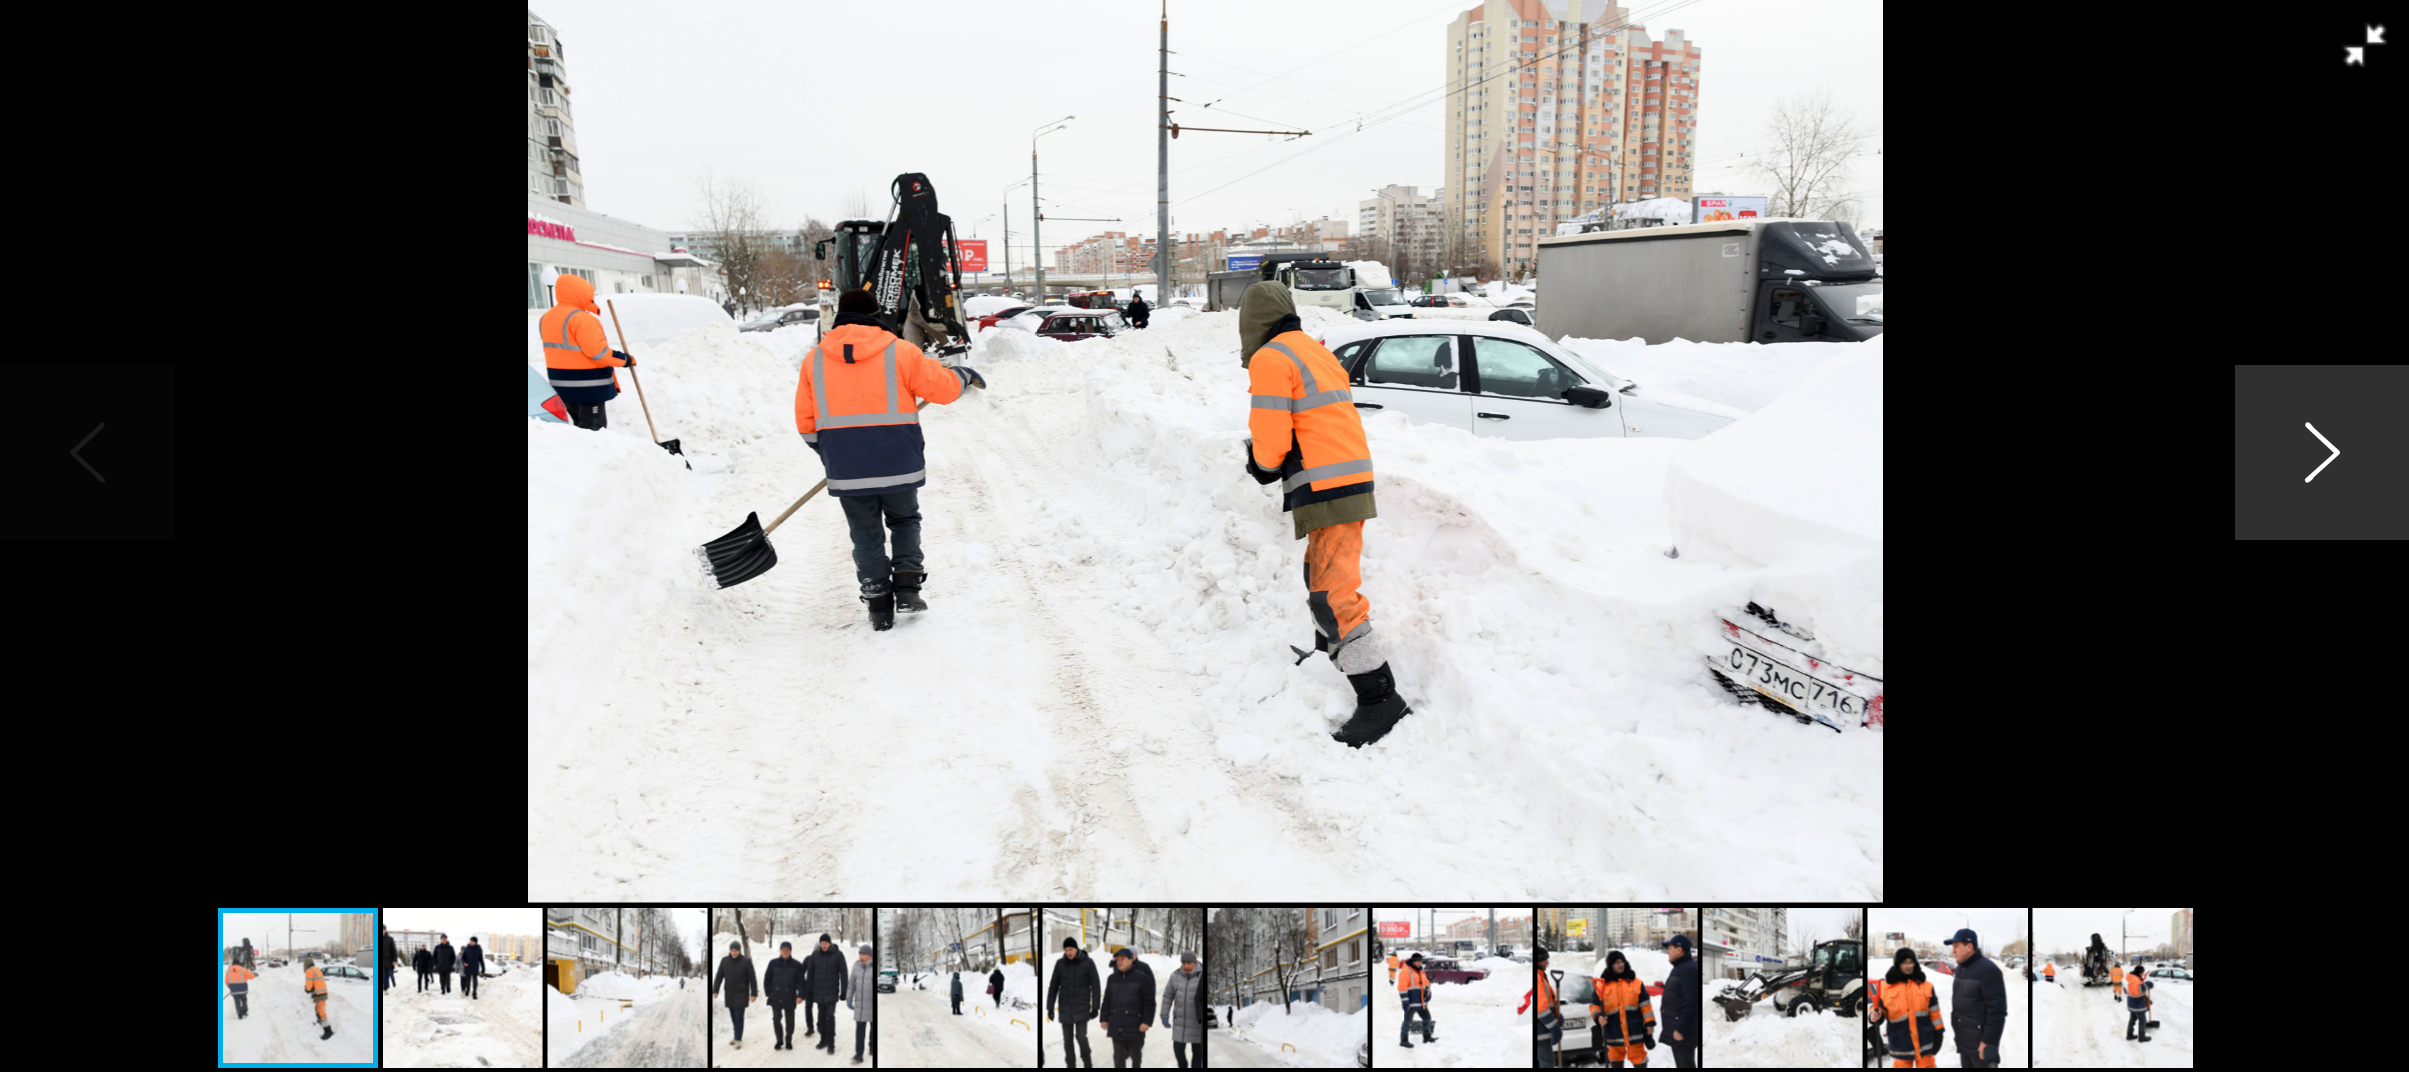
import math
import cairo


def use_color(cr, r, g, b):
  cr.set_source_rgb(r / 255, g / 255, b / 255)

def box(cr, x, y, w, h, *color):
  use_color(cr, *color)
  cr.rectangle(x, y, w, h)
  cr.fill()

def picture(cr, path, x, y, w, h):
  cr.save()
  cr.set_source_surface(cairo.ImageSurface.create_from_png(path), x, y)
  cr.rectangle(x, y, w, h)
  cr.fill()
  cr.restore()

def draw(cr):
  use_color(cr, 0, 0, 0)
  cr.paint()
  picture(cr, "img_01.png", 528, 0, 1355, 903)
  picture(cr, "img_02.png", 2342, 22, 46, 46)
  box(cr, 0, 365, 175, 175, 5, 5, 5)
  use_color(cr, 26, 26, 26)
  cr.set_fill_rule(cairo.FILL_RULE_EVEN_ODD)
  cr.new_path()
  cr.move_to(104, 423)
  cr.curve_to(105, 424, 105, 426, 104, 427)
  cr.line_to(76, 453)
  cr.line_to(105, 479)
  cr.line_to(105, 481)
  cr.curve_to(103, 486, 96, 478, 96, 477)
  cr.line_to(76, 459)
  cr.curve_to(68, 452, 68, 453, 76, 446)
  cr.line_to(96, 428)
  cr.curve_to(97, 427, 101, 420, 104, 423)
  cr.fill()
  box(cr, 2235, 365, 174, 175, 48, 48, 48)
  use_color(cr, 255, 255, 255)
  cr.new_path()
  cr.move_to(2306, 423)
  cr.curve_to(2305, 424, 2305, 426, 2306, 427)
  cr.line_to(2334, 453)
  cr.line_to(2305, 479)
  cr.line_to(2305, 481)
  cr.curve_to(2307, 486, 2314, 478, 2314, 477)
  cr.line_to(2334, 459)
  cr.curve_to(2342, 452, 2342, 453, 2334, 446)
  cr.line_to(2314, 428)
  cr.curve_to(2313, 427, 2309, 420, 2306, 423)
  cr.fill()
  picture(cr, "img_14.png", 223, 913, 150, 150)
  cr.rectangle(220.5, 910.5, 155, 155)
  use_color(cr, 0, 175, 234)
  cr.set_line_width(5)
  cr.stroke()
  box(cr, 542, 908, 1, 160, 25, 25, 25)
  picture(cr, "img_03.png", 383, 908, 160, 160)
  box(cr, 707, 908, 1, 160, 25, 25, 25)
  picture(cr, "img_04.png", 547, 908, 161, 160)
  box(cr, 872, 908, 1, 160, 25, 25, 25)
  picture(cr, "img_05.png", 712, 908, 161, 160)
  box(cr, 1037, 908, 1, 160, 25, 25, 25)
  picture(cr, "img_06.png", 877, 908, 161, 160)
  box(cr, 1202, 908, 1, 160, 25, 25, 25)
  picture(cr, "img_07.png", 1042, 908, 161, 160)
  box(cr, 1367, 908, 1, 160, 25, 25, 25)
  picture(cr, "img_08.png", 1207, 908, 161, 160)
  box(cr, 1532, 908, 1, 160, 25, 25, 25)
  picture(cr, "img_09.png", 1372, 908, 161, 160)
  box(cr, 1697, 908, 1, 160, 25, 25, 25)
  picture(cr, "img_10.png", 1537, 908, 161, 160)
  box(cr, 1862, 908, 1, 160, 25, 25, 25)
  picture(cr, "img_11.png", 1702, 908, 161, 160)
  picture(cr, "img_12.png", 1867, 908, 161, 160)
  picture(cr, "img_13.png", 2032, 908, 161, 160)


surface = cairo.ImageSurface(cairo.FORMAT_RGB24, 2409, 1072)
cr = cairo.Context(surface)
options = cairo.FontOptions()
options.set_hint_metrics(cairo.HINT_METRICS_OFF)
options.set_hint_style(cairo.HINT_STYLE_NONE)
cr.set_font_options(options)
cr.set_miter_limit(4)
draw(cr)
surface.write_to_png("out.png")
